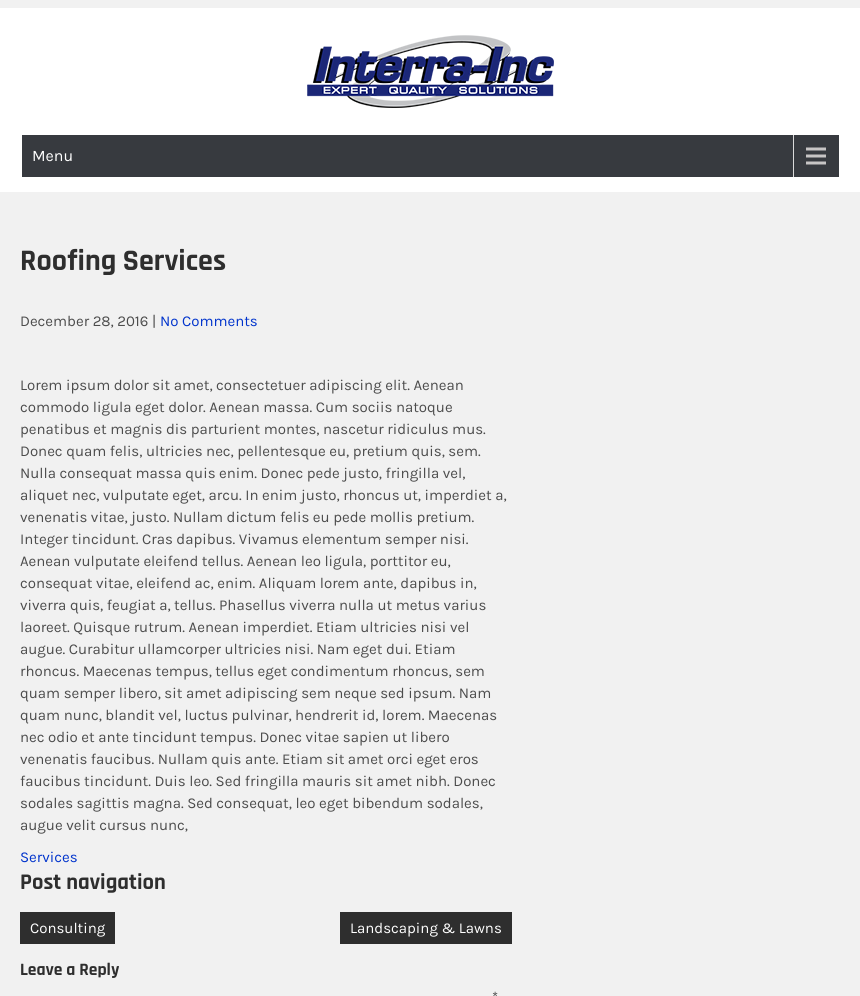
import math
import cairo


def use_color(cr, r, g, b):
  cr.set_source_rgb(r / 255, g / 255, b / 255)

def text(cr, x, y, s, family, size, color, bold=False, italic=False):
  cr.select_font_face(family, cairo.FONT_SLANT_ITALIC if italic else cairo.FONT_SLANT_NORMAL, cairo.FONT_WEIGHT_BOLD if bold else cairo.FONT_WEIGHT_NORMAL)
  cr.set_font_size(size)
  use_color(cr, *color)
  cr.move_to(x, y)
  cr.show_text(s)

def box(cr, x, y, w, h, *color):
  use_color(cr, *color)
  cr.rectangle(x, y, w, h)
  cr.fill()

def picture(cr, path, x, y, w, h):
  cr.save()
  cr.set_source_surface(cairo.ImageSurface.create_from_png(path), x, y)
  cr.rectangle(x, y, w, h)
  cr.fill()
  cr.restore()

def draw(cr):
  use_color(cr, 241, 241, 241)
  cr.paint()
  box(cr, 0, 8, 860, 184, 255, 255, 255)
  picture(cr, "img_01.png", 307, 35, 247, 73)
  box(cr, 22, 135, 817, 42, 55, 58, 63)
  picture(cr, "img_02.png", 793, 135, 33, 42)
  box(cr, 20, 912, 95, 32, 46, 46, 46)
  box(cr, 340, 912, 172, 32, 46, 46, 46)
  text(cr, 32, 161, "Menu", "Karla", 16, (255, 255, 255))
  text(cr, 20, 270, "Roofing Services", "Rajdhani", 30, (46, 46, 46), bold=True)
  text(cr, 20, 326, "December 28, 2016 |", "Karla", 15, (76, 76, 76))
  text(cr, 160, 326, "No Comments", "Karla", 15, (0, 51, 204))
  text(cr, 20, 390, "Lorem ipsum dolor sit amet, consectetuer adipiscing elit. Aenean", "Karla", 15, (76, 76, 76))
  text(cr, 20, 412, "commodo ligula eget dolor. Aenean massa. Cum sociis natoque", "Karla", 15, (76, 76, 76))
  text(cr, 20, 434, "penatibus et magnis dis parturient montes, nascetur ridiculus mus.", "Karla", 15, (76, 76, 76))
  text(cr, 20, 456, "Donec quam felis, ultricies nec, pellentesque eu, pretium quis, sem.", "Karla", 15, (76, 76, 76))
  text(cr, 20, 478, "Nulla consequat massa quis enim. Donec pede justo, fringilla vel,", "Karla", 15, (76, 76, 76))
  text(cr, 20, 500, "aliquet nec, vulputate eget, arcu. In enim justo, rhoncus ut, imperdiet a,", "Karla", 15, (76, 76, 76))
  text(cr, 20, 522, "venenatis vitae, justo. Nullam dictum felis eu pede mollis pretium.", "Karla", 15, (76, 76, 76))
  text(cr, 20, 544, "Integer tincidunt. Cras dapibus. Vivamus elementum semper nisi.", "Karla", 15, (76, 76, 76))
  text(cr, 20, 566, "Aenean vulputate eleifend tellus. Aenean leo ligula, porttitor eu,", "Karla", 15, (76, 76, 76))
  text(cr, 20, 588, "consequat vitae, eleifend ac, enim. Aliquam lorem ante, dapibus in,", "Karla", 15, (76, 76, 76))
  text(cr, 20, 610, "viverra quis, feugiat a, tellus. Phasellus viverra nulla ut metus varius", "Karla", 15, (76, 76, 76))
  text(cr, 20, 632, "laoreet. Quisque rutrum. Aenean imperdiet. Etiam ultricies nisi vel", "Karla", 15, (76, 76, 76))
  text(cr, 20, 654, "augue. Curabitur ullamcorper ultricies nisi. Nam eget dui. Etiam", "Karla", 15, (76, 76, 76))
  text(cr, 20, 676, "rhoncus. Maecenas tempus, tellus eget condimentum rhoncus, sem", "Karla", 15, (76, 76, 76))
  text(cr, 20, 698, "quam semper libero, sit amet adipiscing sem neque sed ipsum. Nam", "Karla", 15, (76, 76, 76))
  text(cr, 20, 720, "quam nunc, blandit vel, luctus pulvinar, hendrerit id, lorem. Maecenas", "Karla", 15, (76, 76, 76))
  text(cr, 20, 742, "nec odio et ante tincidunt tempus. Donec vitae sapien ut libero", "Karla", 15, (76, 76, 76))
  text(cr, 20, 764, "venenatis faucibus. Nullam quis ante. Etiam sit amet orci eget eros", "Karla", 15, (76, 76, 76))
  text(cr, 20, 786, "faucibus tincidunt. Duis leo. Sed fringilla mauris sit amet nibh. Donec", "Karla", 15, (76, 76, 76))
  text(cr, 20, 808, "sodales sagittis magna. Sed consequat, leo eget bibendum sodales,", "Karla", 15, (76, 76, 76))
  text(cr, 20, 830, "augue velit cursus nunc,", "Karla", 15, (76, 76, 76))
  text(cr, 20, 862, "Services", "Karla", 15, (0, 51, 204))
  text(cr, 20, 889, "Post navigation", "Rajdhani", 22.5, (46, 46, 46), bold=True)
  text(cr, 30, 933, "Consulting", "Karla", 15, (255, 255, 255))
  text(cr, 350, 933, "Landscaping & Lawns", "Karla", 15, (255, 255, 255))
  text(cr, 20, 975, "Leave a Reply", "Rajdhani", 17.5, (46, 46, 46), bold=True)
  text(cr, 492, 1002, "*", "Karla", 15, (76, 76, 76))


surface = cairo.ImageSurface(cairo.FORMAT_RGB24, 860, 996)
cr = cairo.Context(surface)
options = cairo.FontOptions()
options.set_hint_metrics(cairo.HINT_METRICS_OFF)
options.set_hint_style(cairo.HINT_STYLE_NONE)
cr.set_font_options(options)
cr.set_miter_limit(4)
draw(cr)
surface.write_to_png("out.png")
